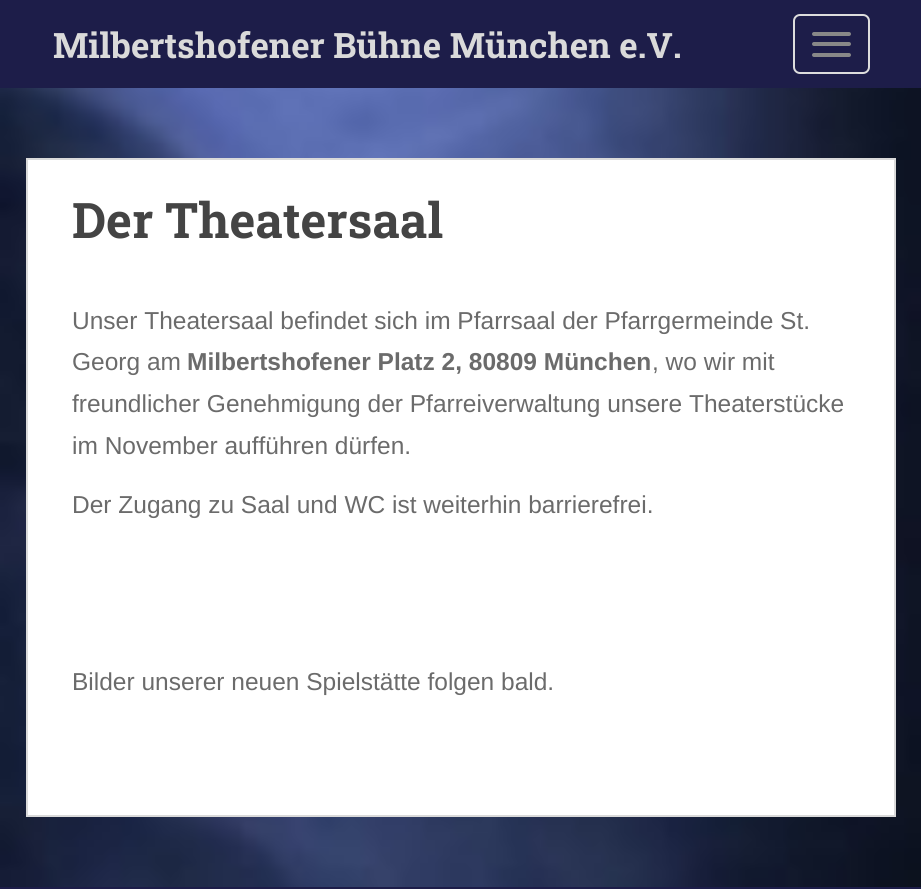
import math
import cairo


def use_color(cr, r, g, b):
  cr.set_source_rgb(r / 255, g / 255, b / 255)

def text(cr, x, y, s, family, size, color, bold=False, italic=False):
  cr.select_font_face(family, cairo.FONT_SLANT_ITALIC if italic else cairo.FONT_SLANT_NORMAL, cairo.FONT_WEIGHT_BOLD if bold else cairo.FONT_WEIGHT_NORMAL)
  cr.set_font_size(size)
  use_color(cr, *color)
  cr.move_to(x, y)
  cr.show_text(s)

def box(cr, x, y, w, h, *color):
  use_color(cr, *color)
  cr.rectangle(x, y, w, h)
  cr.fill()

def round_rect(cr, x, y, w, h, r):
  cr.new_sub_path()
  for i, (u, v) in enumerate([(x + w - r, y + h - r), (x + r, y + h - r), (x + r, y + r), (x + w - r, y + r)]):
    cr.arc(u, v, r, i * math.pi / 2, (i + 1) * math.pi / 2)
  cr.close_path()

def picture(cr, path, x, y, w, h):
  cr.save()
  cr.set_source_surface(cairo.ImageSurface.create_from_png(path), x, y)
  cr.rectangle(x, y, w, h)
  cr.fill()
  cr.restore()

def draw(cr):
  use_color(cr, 255, 255, 255)
  cr.paint()
  picture(cr, "img_01.png", 0, 88, 921, 799)
  box(cr, 0, 0, 921, 88, 29, 29, 73)
  round_rect(cr, 794, 15, 75, 58, 6)
  use_color(cr, 221, 221, 221)
  cr.stroke()
  use_color(cr, 136, 136, 136)
  round_rect(cr, 812, 32, 39, 4, 2)
  cr.fill()
  round_rect(cr, 812, 42, 39, 4, 2)
  cr.fill()
  round_rect(cr, 812, 53, 39, 4, 2)
  cr.fill()
  use_color(cr, 255, 255, 255)
  cr.rectangle(27, 159, 868, 657)
  cr.fill_preserve()
  use_color(cr, 218, 218, 218)
  cr.stroke()
  box(cr, 0, 887, 921, 2, 29, 29, 73)
  text(cr, 53, 58, "Milbertshofener Bühne München e.V.", "Roboto Slab", 35, (218, 218, 218), bold=True)
  text(cr, 72, 238, "Der Theatersaal", "Roboto Slab", 49, (68, 68, 68), bold=True)
  text(cr, 72, 329, "Unser Theatersaal befindet sich im Pfarrsaal der Pfarrgermeinde St.", "Liberation Sans", 24.5, (107, 107, 107))
  text(cr, 72, 370, "Georg am", "Liberation Sans", 24.5, (107, 107, 107))
  text(cr, 187, 370, "Milbertshofener Platz 2, 80809 München", "Liberation Sans", 24.5, (107, 107, 107), bold=True)
  text(cr, 652, 370, ", wo wir mit", "Liberation Sans", 24.5, (107, 107, 107))
  text(cr, 72, 412, "freundlicher Genehmigung der Pfarreiverwaltung unsere Theaterstücke", "Liberation Sans", 24.5, (107, 107, 107))
  text(cr, 72, 454, "im November aufführen dürfen.", "Liberation Sans", 24.5, (107, 107, 107))
  text(cr, 72, 513, "Der Zugang zu Saal und WC ist weiterhin barrierefrei.", "Liberation Sans", 24.5, (107, 107, 107))
  text(cr, 72, 690, "Bilder unserer neuen Spielstätte folgen bald.", "Liberation Sans", 24.5, (107, 107, 107))


surface = cairo.ImageSurface(cairo.FORMAT_RGB24, 921, 889)
cr = cairo.Context(surface)
options = cairo.FontOptions()
options.set_hint_metrics(cairo.HINT_METRICS_OFF)
options.set_hint_style(cairo.HINT_STYLE_NONE)
cr.set_font_options(options)
cr.set_miter_limit(4)
draw(cr)
surface.write_to_png("out.png")
